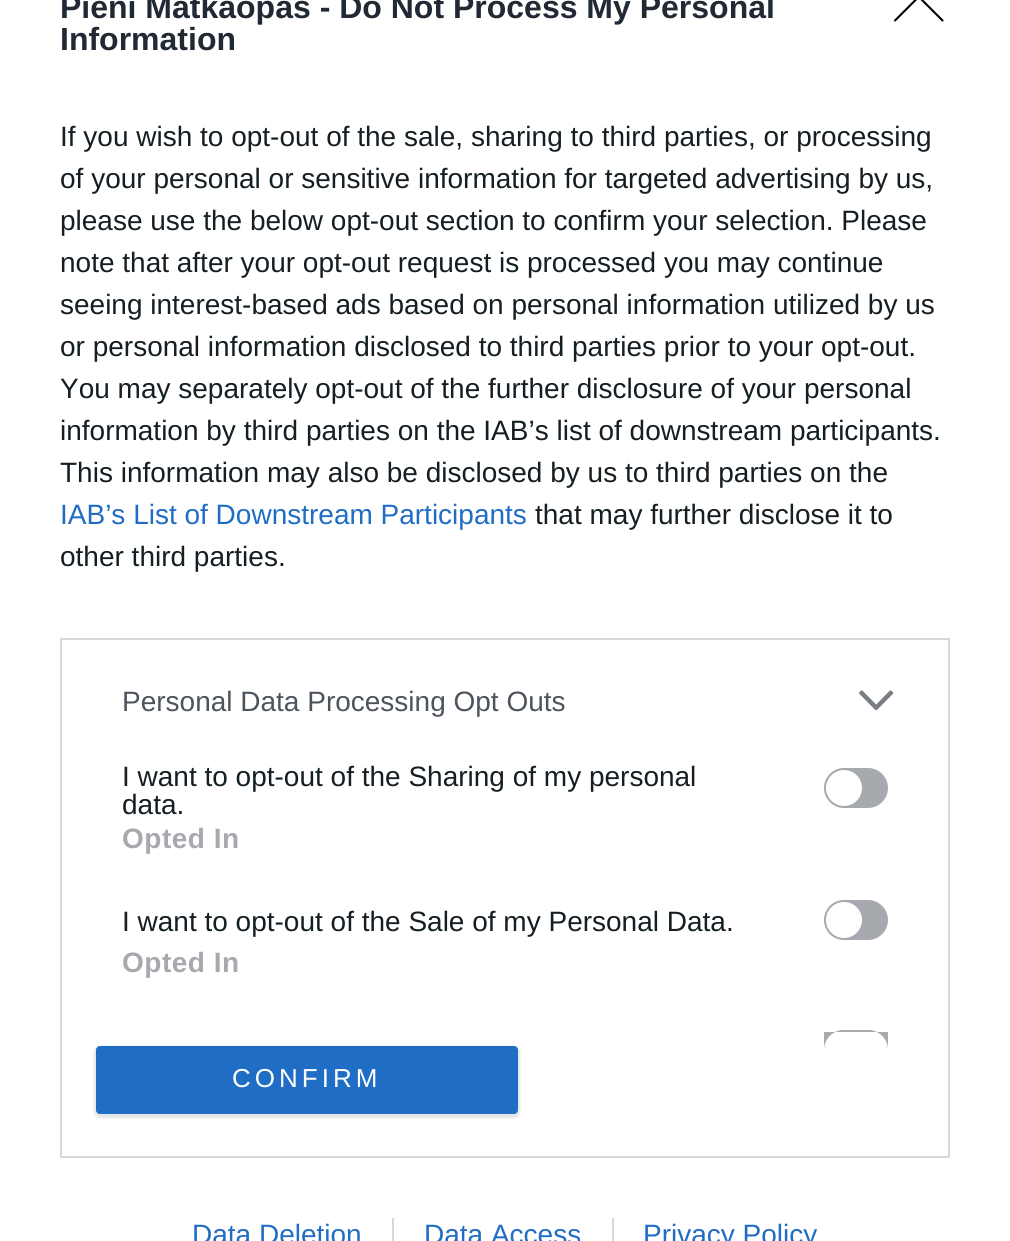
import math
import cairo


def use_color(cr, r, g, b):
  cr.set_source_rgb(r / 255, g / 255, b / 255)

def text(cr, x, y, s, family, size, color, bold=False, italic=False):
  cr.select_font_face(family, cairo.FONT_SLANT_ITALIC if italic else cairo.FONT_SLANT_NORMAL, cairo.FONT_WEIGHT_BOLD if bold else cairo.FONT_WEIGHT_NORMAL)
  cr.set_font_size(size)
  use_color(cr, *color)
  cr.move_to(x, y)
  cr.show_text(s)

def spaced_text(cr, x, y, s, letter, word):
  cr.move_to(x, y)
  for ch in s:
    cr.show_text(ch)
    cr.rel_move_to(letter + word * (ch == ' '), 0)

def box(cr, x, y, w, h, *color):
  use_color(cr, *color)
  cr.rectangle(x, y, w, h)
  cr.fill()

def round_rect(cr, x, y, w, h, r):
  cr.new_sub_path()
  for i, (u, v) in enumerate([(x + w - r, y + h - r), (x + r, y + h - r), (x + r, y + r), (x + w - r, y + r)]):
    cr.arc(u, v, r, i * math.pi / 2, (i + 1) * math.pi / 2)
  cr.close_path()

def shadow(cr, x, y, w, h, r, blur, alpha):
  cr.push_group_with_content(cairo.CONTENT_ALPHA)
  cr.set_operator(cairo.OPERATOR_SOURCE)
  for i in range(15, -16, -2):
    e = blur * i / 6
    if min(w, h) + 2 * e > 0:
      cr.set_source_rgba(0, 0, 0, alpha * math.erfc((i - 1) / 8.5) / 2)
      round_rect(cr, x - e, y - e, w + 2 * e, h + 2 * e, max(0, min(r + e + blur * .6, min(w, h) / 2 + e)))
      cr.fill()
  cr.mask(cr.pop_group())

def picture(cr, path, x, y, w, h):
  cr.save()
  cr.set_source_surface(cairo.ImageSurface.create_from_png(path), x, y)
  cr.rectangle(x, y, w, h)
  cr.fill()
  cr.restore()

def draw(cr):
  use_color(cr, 255, 255, 255)
  cr.paint()
  cr.rectangle(61, 639, 888, 518)
  use_color(cr, 216, 216, 216)
  cr.stroke()
  picture(cr, "img_01.png", 859, 690, 35, 21)
  use_color(cr, 166, 169, 174)
  round_rect(cr, 825, 769, 62, 38, 19)
  cr.fill_preserve()
  cr.stroke()
  use_color(cr, 255, 255, 255)
  cr.arc(844, 788, 18, 0, 2 * math.pi)
  cr.fill()
  use_color(cr, 166, 169, 174)
  round_rect(cr, 825, 901, 62, 38, 19)
  cr.fill_preserve()
  cr.stroke()
  use_color(cr, 255, 255, 255)
  cr.arc(844, 920, 18, 0, 2 * math.pi)
  cr.fill()
  use_color(cr, 166, 169, 174)
  cr.new_path()
  cr.move_to(844, 1030)
  cr.line_to(868, 1030)
  cr.curve_to(879, 1030, 888, 1039, 888, 1050)
  cr.line_to(888, 1032)
  cr.line_to(824, 1032)
  cr.line_to(824, 1050)
  cr.curve_to(824, 1039, 833, 1030, 844, 1030)
  cr.close_path()
  cr.fill()
  cr.save()
  cr.rectangle(82, 660, 846, 372)
  cr.clip()
  round_rect(cr, 825, 1031, 62, 38, 19)
  cr.stroke()
  cr.restore()
  use_color(cr, 0, 0, 0)
  shadow(cr, 94, 1046, 426, 72, 6, 1, 0.1)
  use_color(cr, 32, 109, 197)
  round_rect(cr, 96, 1046, 422, 68, 4)
  cr.fill()
  cr.new_path()
  cr.move_to(895, -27)
  cr.line_to(942.5, 20.5)
  cr.move_to(942.5, -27)
  cr.line_to(895, 20.5)
  use_color(cr, 0, 0, 0)
  cr.set_line_width(2.1)
  cr.set_line_cap(cairo.LINE_CAP_ROUND)
  cr.set_line_join(cairo.LINE_JOIN_ROUND)
  cr.stroke()
  box(cr, 392, 1218, 2, 23, 216, 216, 216)
  box(cr, 612, 1218, 2, 23, 216, 216, 216)
  text(cr, 60, 18, "Pieni Matkaopas - Do Not Process My Personal", "Liberation Sans", 32, (33, 41, 52), bold=True)
  text(cr, 60, 50, "Information", "Liberation Sans", 32, (33, 41, 52), bold=True)
  text(cr, 60, 146, "If you wish to opt-out of the sale, sharing to third parties, or processing", "Liberation Sans", 28, (20, 30, 35))
  text(cr, 60, 188, "of your personal or sensitive information for targeted advertising by us,", "Liberation Sans", 28, (20, 30, 35))
  text(cr, 60, 230, "please use the below opt-out section to confirm your selection. Please", "Liberation Sans", 28, (20, 30, 35))
  text(cr, 60, 272, "note that after your opt-out request is processed you may continue", "Liberation Sans", 28, (20, 30, 35))
  text(cr, 60, 314, "seeing interest-based ads based on personal information utilized by us", "Liberation Sans", 28, (20, 30, 35))
  text(cr, 60, 356, "or personal information disclosed to third parties prior to your opt-out.", "Liberation Sans", 28, (20, 30, 35))
  text(cr, 60, 398, "You may separately opt-out of the further disclosure of your personal", "Liberation Sans", 28, (20, 30, 35))
  text(cr, 60, 440, "information by third parties on the IAB’s list of downstream participants.", "Liberation Sans", 28, (20, 30, 35))
  text(cr, 60, 482, "This information may also be disclosed by us to third parties on the", "Liberation Sans", 28, (20, 30, 35))
  text(cr, 60, 524, "IAB’s List of Downstream Participants", "Liberation Sans", 28, (32, 109, 197))
  text(cr, 535, 524, "that may further disclose it to", "Liberation Sans", 28, (20, 30, 35))
  text(cr, 60, 566, "other third parties.", "Liberation Sans", 28, (20, 30, 35))
  text(cr, 122, 711, "Personal Data Processing Opt Outs", "Liberation Sans", 28, (77, 84, 93))
  text(cr, 122, 786, "I want to opt-out of the Sharing of my personal", "Liberation Sans", 28, (20, 30, 35))
  text(cr, 122, 814, "data.", "Liberation Sans", 28, (20, 30, 35))
  cr.select_font_face("Liberation Sans", cairo.FONT_SLANT_NORMAL, cairo.FONT_WEIGHT_BOLD)
  use_color(cr, 166, 169, 174)
  spaced_text(cr, 122, 848, "Opted In", 0.5, 0)
  text(cr, 122, 931, "I want to opt-out of the Sale of my Personal Data.", "Liberation Sans", 28, (20, 30, 35))
  cr.select_font_face("Liberation Sans", cairo.FONT_SLANT_NORMAL, cairo.FONT_WEIGHT_BOLD)
  use_color(cr, 166, 169, 174)
  spaced_text(cr, 122, 972, "Opted In", 0.5, 0)
  cr.select_font_face("Liberation Sans")
  cr.set_font_size(26)
  use_color(cr, 255, 255, 255)
  spaced_text(cr, 232, 1087, "CONFIRM", 4, 0)
  text(cr, 192, 1244, "Data Deletion", "Liberation Sans", 28, (32, 109, 197))
  text(cr, 424, 1244, "Data Access", "Liberation Sans", 28, (32, 109, 197))
  text(cr, 643, 1244, "Privacy Policy", "Liberation Sans", 28, (32, 109, 197))


surface = cairo.ImageSurface(cairo.FORMAT_RGB24, 1010, 1241)
cr = cairo.Context(surface)
options = cairo.FontOptions()
options.set_hint_metrics(cairo.HINT_METRICS_OFF)
options.set_hint_style(cairo.HINT_STYLE_NONE)
cr.set_font_options(options)
cr.set_miter_limit(4)
draw(cr)
surface.write_to_png("out.png")
